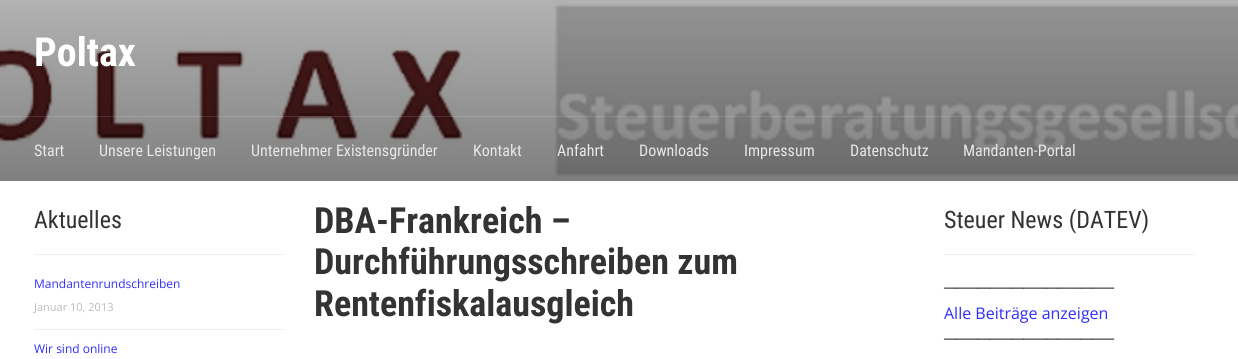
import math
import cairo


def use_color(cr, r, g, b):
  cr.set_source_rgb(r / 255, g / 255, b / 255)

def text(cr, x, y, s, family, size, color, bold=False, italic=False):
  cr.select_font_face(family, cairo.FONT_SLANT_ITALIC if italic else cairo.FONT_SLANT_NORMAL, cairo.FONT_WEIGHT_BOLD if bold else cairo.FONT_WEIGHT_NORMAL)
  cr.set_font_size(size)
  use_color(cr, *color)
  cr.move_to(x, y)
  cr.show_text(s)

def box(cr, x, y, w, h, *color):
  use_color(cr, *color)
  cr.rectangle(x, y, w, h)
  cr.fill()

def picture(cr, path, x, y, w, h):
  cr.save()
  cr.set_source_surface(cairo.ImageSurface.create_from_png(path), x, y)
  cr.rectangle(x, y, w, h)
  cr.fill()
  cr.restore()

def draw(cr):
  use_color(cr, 255, 255, 255)
  cr.paint()
  picture(cr, "img_01.png", 0, 0, 1238, 181)
  cr.set_source_rgba(1, 1, 1, 0.13)
  cr.rectangle(0, 116, 1238, 1)
  cr.fill()
  box(cr, 34, 254, 250, 1, 238, 238, 238)
  box(cr, 34, 329, 250, 1, 238, 238, 238)
  box(cr, 944, 254, 250, 1, 238, 238, 238)
  text(cr, 34, 66, "Poltax", "Roboto Condensed", 40, (255, 255, 255), bold=True)
  text(cr, 34, 156, "Start", "Roboto Condensed", 16, (231, 231, 231))
  text(cr, 99, 156, "Unsere Leistungen", "Roboto Condensed", 16, (231, 231, 231))
  text(cr, 251, 156, "Unternehmer Existensgründer", "Roboto Condensed", 16, (231, 231, 231))
  text(cr, 473, 156, "Kontakt", "Roboto Condensed", 16, (231, 231, 231))
  text(cr, 557, 156, "Anfahrt", "Roboto Condensed", 16, (231, 231, 231))
  text(cr, 639, 156, "Downloads", "Roboto Condensed", 16, (231, 231, 231))
  text(cr, 744, 156, "Impressum", "Roboto Condensed", 16, (231, 231, 231))
  text(cr, 850, 156, "Datenschutz", "Roboto Condensed", 16, (231, 231, 231))
  text(cr, 963, 156, "Mandanten-Portal", "Roboto Condensed", 16, (231, 231, 231))
  text(cr, 34, 228, "Aktuelles", "Roboto Condensed", 24, (51, 51, 51))
  text(cr, 34, 288, "Mandantenrundschreiben", "Open Sans", 12, (46, 46, 254))
  text(cr, 34, 311, "Januar 10, 2013", "Open Sans", 11, (187, 187, 187))
  text(cr, 34, 353, "Wir sind online", "Open Sans", 12, (46, 46, 254))
  text(cr, 314, 233, "DBA-Frankreich –", "Roboto Condensed", 36, (51, 51, 51), bold=True)
  text(cr, 314, 274, "Durchführungsschreiben zum", "Roboto Condensed", 36, (51, 51, 51), bold=True)
  text(cr, 314, 316, "Rentenfiskalausgleich", "Roboto Condensed", 36, (51, 51, 51), bold=True)
  text(cr, 944, 228, "Steuer News (DATEV)", "Roboto Condensed", 24, (51, 51, 51))
  text(cr, 944, 293, "───────────────", "Liberation Sans", 16, (51, 51, 51))
  text(cr, 944, 319, "Alle Beiträge anzeigen", "Open Sans", 16, (46, 46, 254))
  text(cr, 944, 344, "───────────────", "Liberation Sans", 16, (51, 51, 51))


surface = cairo.ImageSurface(cairo.FORMAT_RGB24, 1238, 359)
cr = cairo.Context(surface)
options = cairo.FontOptions()
options.set_hint_metrics(cairo.HINT_METRICS_OFF)
options.set_hint_style(cairo.HINT_STYLE_NONE)
cr.set_font_options(options)
cr.set_miter_limit(4)
draw(cr)
surface.write_to_png("out.png")
